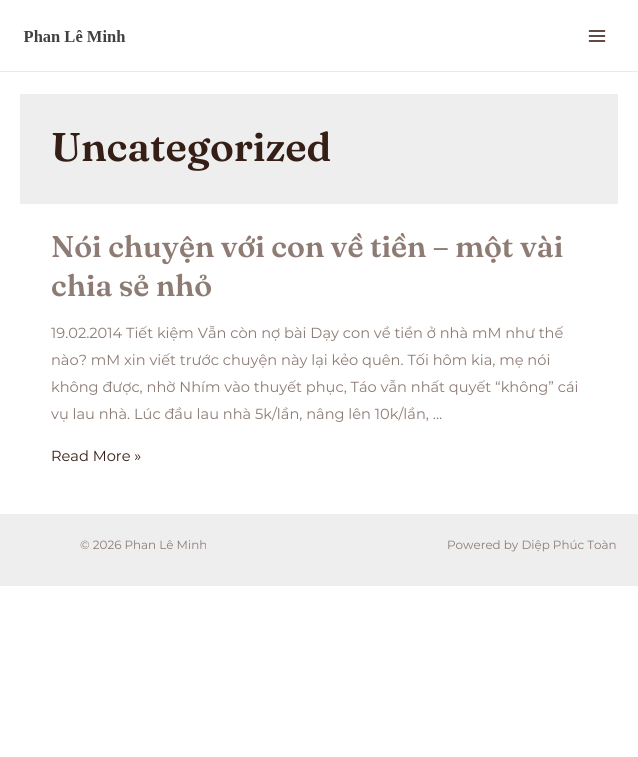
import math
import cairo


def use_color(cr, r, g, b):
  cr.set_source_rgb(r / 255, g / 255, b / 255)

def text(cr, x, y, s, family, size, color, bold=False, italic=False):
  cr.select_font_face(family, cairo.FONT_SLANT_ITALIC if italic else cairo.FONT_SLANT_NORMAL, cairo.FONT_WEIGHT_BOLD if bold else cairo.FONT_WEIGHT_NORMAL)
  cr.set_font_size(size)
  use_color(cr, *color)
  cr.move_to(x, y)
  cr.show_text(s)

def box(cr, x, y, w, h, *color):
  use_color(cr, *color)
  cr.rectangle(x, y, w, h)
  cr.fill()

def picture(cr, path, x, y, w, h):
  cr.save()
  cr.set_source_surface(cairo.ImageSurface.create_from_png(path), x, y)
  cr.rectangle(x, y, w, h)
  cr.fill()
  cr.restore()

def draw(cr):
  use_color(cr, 255, 255, 255)
  cr.paint()
  box(cr, 0, 71, 638, 1, 234, 234, 234)
  picture(cr, "img_01.png", 23, 30, 103, 12)
  picture(cr, "img_02.png", 588, 30, 18, 12)
  box(cr, 20, 94, 598, 110, 238, 238, 238)
  box(cr, 0, 514, 638, 72, 238, 238, 238)
  text(cr, 51, 161, "Uncategorized", "Fraunces SemiBold", 40, (53, 30, 21))
  text(cr, 51, 257, "Nói chuyện với con về tiền – một vài", "Fraunces SemiBold", 30, (141, 123, 116))
  text(cr, 51, 296, "chia sẻ nhỏ", "Fraunces SemiBold", 30, (141, 123, 116))
  text(cr, 51, 338, "19.02.2014 Tiết kiệm Vẫn còn nợ bài Dạy con về tiền ở nhà mM như thế", "Montserrat", 14.6, (141, 123, 116))
  text(cr, 51, 365, "nào? mM xin viết trước chuyện này lại kẻo quên. Tối hôm kia, mẹ nói", "Montserrat", 14.6, (141, 123, 116))
  text(cr, 51, 392, "không được, nhờ Nhím vào thuyết phục, Táo vẫn nhất quyết “không” cái", "Montserrat", 14.6, (141, 123, 116))
  text(cr, 51, 419, "vụ lau nhà. Lúc đầu lau nhà 5k/lần, nâng lên 10k/lần, …", "Montserrat", 14.6, (141, 123, 116))
  text(cr, 51, 461, "Read More »", "Montserrat", 14.6, (53, 30, 21))
  text(cr, 80, 549, "© 2026 Phan Lê Minh", "Montserrat", 11.9, (141, 123, 116))
  text(cr, 447, 549, "Powered by Diệp Phúc Toàn", "Montserrat", 11.9, (141, 123, 116))


surface = cairo.ImageSurface(cairo.FORMAT_RGB24, 638, 757)
cr = cairo.Context(surface)
options = cairo.FontOptions()
options.set_hint_metrics(cairo.HINT_METRICS_OFF)
options.set_hint_style(cairo.HINT_STYLE_NONE)
cr.set_font_options(options)
cr.set_miter_limit(4)
draw(cr)
surface.write_to_png("out.png")
